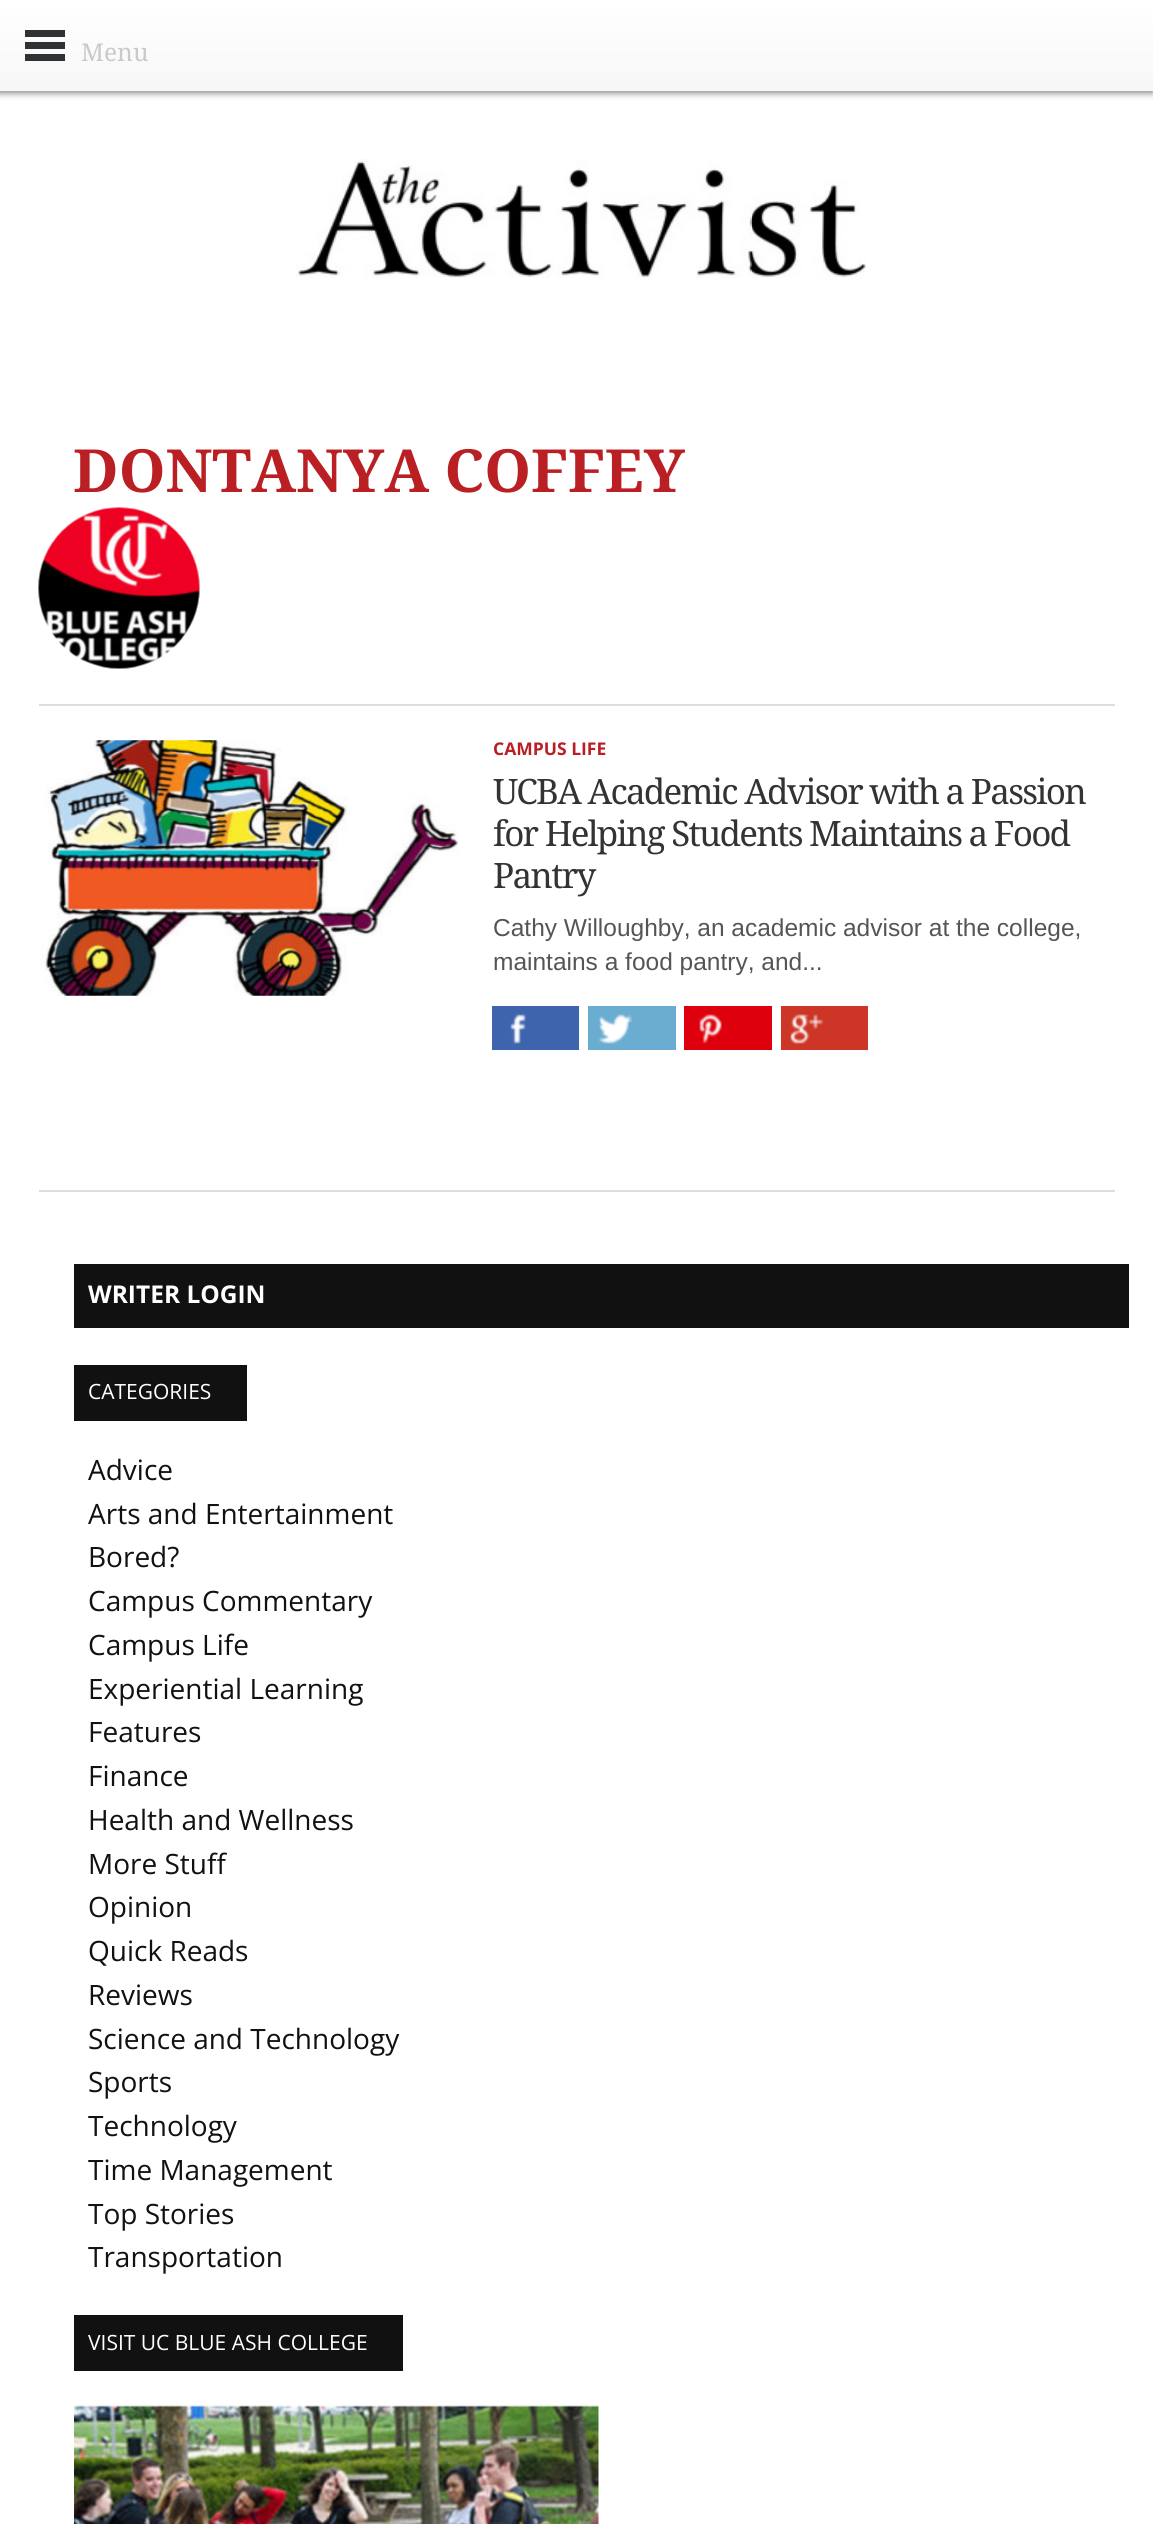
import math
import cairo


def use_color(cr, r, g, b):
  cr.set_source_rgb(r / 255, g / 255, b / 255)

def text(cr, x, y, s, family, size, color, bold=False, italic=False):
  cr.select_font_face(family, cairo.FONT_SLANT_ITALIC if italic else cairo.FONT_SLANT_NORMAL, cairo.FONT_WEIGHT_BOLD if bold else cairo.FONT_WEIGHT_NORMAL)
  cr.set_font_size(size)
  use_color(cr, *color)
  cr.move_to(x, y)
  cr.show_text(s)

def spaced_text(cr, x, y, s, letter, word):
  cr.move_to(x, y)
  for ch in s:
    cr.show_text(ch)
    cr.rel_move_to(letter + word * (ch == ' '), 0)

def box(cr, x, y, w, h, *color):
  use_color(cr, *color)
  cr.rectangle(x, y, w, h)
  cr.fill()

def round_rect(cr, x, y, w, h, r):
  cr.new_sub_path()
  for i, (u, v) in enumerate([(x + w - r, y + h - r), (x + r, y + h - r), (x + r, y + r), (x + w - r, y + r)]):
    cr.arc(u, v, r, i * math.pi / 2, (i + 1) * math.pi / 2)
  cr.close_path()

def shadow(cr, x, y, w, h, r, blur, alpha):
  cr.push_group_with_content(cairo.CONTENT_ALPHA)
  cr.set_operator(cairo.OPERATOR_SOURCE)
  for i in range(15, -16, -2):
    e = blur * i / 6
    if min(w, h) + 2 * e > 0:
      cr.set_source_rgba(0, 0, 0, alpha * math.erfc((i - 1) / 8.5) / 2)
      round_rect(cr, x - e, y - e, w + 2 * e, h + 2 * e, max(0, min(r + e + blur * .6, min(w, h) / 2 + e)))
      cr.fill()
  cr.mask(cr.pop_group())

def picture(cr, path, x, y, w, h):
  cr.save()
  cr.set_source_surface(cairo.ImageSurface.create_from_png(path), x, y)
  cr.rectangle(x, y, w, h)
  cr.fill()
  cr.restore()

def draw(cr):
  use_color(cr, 255, 255, 255)
  cr.paint()
  use_color(cr, 0, 0, 0)
  shadow(cr, -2, 2, 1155, 91, 0, 3.5, 0.5)
  gradient = cairo.LinearGradient(576, 0, 576, 91)
  gradient.add_color_stop_rgba(0, 1, 1, 1, 1)
  gradient.add_color_stop_rgba(1, 0.969, 0.969, 0.969, 1)
  cr.set_source(gradient)
  cr.rectangle(0, 0, 1153, 91)
  cr.fill()
  box(cr, 25, 30, 40, 7, 48, 51, 53)
  box(cr, 25, 42, 40, 7, 48, 51, 53)
  box(cr, 25, 54, 40, 7, 48, 51, 53)
  picture(cr, "img_01.png", 296, 159, 571, 119)
  box(cr, 39, 704, 1076, 2, 221, 221, 221)
  picture(cr, "img_02.png", 38, 507, 162, 162)
  picture(cr, "img_03.png", 40, 740, 419, 256)
  box(cr, 492, 1006, 87, 44, 62, 100, 173)
  picture(cr, "img_04.png", 510, 1014, 16, 30)
  box(cr, 588, 1006, 88, 44, 106, 173, 209)
  picture(cr, "img_05.png", 598, 1014, 34, 30)
  box(cr, 684, 1006, 88, 44, 222, 1, 13)
  picture(cr, "img_06.png", 699, 1014, 23, 30)
  box(cr, 781, 1006, 87, 44, 205, 54, 39)
  picture(cr, "img_07.png", 790, 1014, 34, 30)
  box(cr, 39, 1190, 1076, 2, 221, 221, 221)
  box(cr, 74, 1264, 1055, 64, 17, 17, 17)
  box(cr, 74, 1365, 173, 56, 17, 17, 17)
  box(cr, 74, 2315, 329, 56, 17, 17, 17)
  picture(cr, "img_08.png", 74, 2405, 525, 119)
  text(cr, 81, 61, "Menu", "Droid Serif", 24.5, (201, 201, 201))
  text(cr, 73, 492, "DONTANYA COFFEY", "Droid Serif", 59.5, (186, 31, 36), bold=True)
  text(cr, 493, 755, "CAMPUS LIFE", "Open Sans", 17.5, (186, 31, 36), bold=True)
  cr.select_font_face("Droid Serif")
  cr.set_font_size(35)
  use_color(cr, 51, 51, 51)
  spaced_text(cr, 493, 804, "UCBA Academic Advisor with a Passion", -1.75, 0)
  spaced_text(cr, 493, 846, "for Helping Students Maintains a Food", -1.75, 0)
  spaced_text(cr, 493, 888, "Pantry", -1.75, 0)
  text(cr, 493, 936, "Cathy Willoughby, an academic advisor at the college,", "Liberation Sans", 24.5, (85, 85, 85))
  text(cr, 493, 970, "maintains a food pantry, and...", "Liberation Sans", 24.5, (85, 85, 85))
  text(cr, 88, 1303, "WRITER LOGIN", "Open Sans", 24.5, (255, 255, 255), bold=True)
  text(cr, 88, 1399, "CATEGORIES", "Open Sans", 21, (255, 255, 255))
  text(cr, 88, 1480, "Advice", "Open Sans", 28, (17, 17, 17))
  text(cr, 88, 1524, "Arts and Entertainment", "Open Sans", 28, (17, 17, 17))
  text(cr, 88, 1567, "Bored?", "Open Sans", 28, (17, 17, 17))
  text(cr, 88, 1611, "Campus Commentary", "Open Sans", 28, (17, 17, 17))
  text(cr, 88, 1655, "Campus Life", "Open Sans", 28, (17, 17, 17))
  text(cr, 88, 1699, "Experiential Learning", "Open Sans", 28, (17, 17, 17))
  text(cr, 88, 1742, "Features", "Open Sans", 28, (17, 17, 17))
  text(cr, 88, 1786, "Finance", "Open Sans", 28, (17, 17, 17))
  text(cr, 88, 1830, "Health and Wellness", "Open Sans", 28, (17, 17, 17))
  text(cr, 88, 1874, "More Stuff", "Open Sans", 28, (17, 17, 17))
  text(cr, 88, 1917, "Opinion", "Open Sans", 28, (17, 17, 17))
  text(cr, 88, 1961, "Quick Reads", "Open Sans", 28, (17, 17, 17))
  text(cr, 88, 2005, "Reviews", "Open Sans", 28, (17, 17, 17))
  text(cr, 88, 2049, "Science and Technology", "Open Sans", 28, (17, 17, 17))
  text(cr, 88, 2092, "Sports", "Open Sans", 28, (17, 17, 17))
  text(cr, 88, 2136, "Technology", "Open Sans", 28, (17, 17, 17))
  text(cr, 88, 2180, "Time Management", "Open Sans", 28, (17, 17, 17))
  text(cr, 88, 2224, "Top Stories", "Open Sans", 28, (17, 17, 17))
  text(cr, 88, 2267, "Transportation", "Open Sans", 28, (17, 17, 17))
  text(cr, 88, 2350, "VISIT UC BLUE ASH COLLEGE", "Open Sans", 21, (255, 255, 255))


surface = cairo.ImageSurface(cairo.FORMAT_RGB24, 1153, 2524)
cr = cairo.Context(surface)
options = cairo.FontOptions()
options.set_hint_metrics(cairo.HINT_METRICS_OFF)
options.set_hint_style(cairo.HINT_STYLE_NONE)
cr.set_font_options(options)
cr.set_miter_limit(4)
draw(cr)
surface.write_to_png("out.png")
